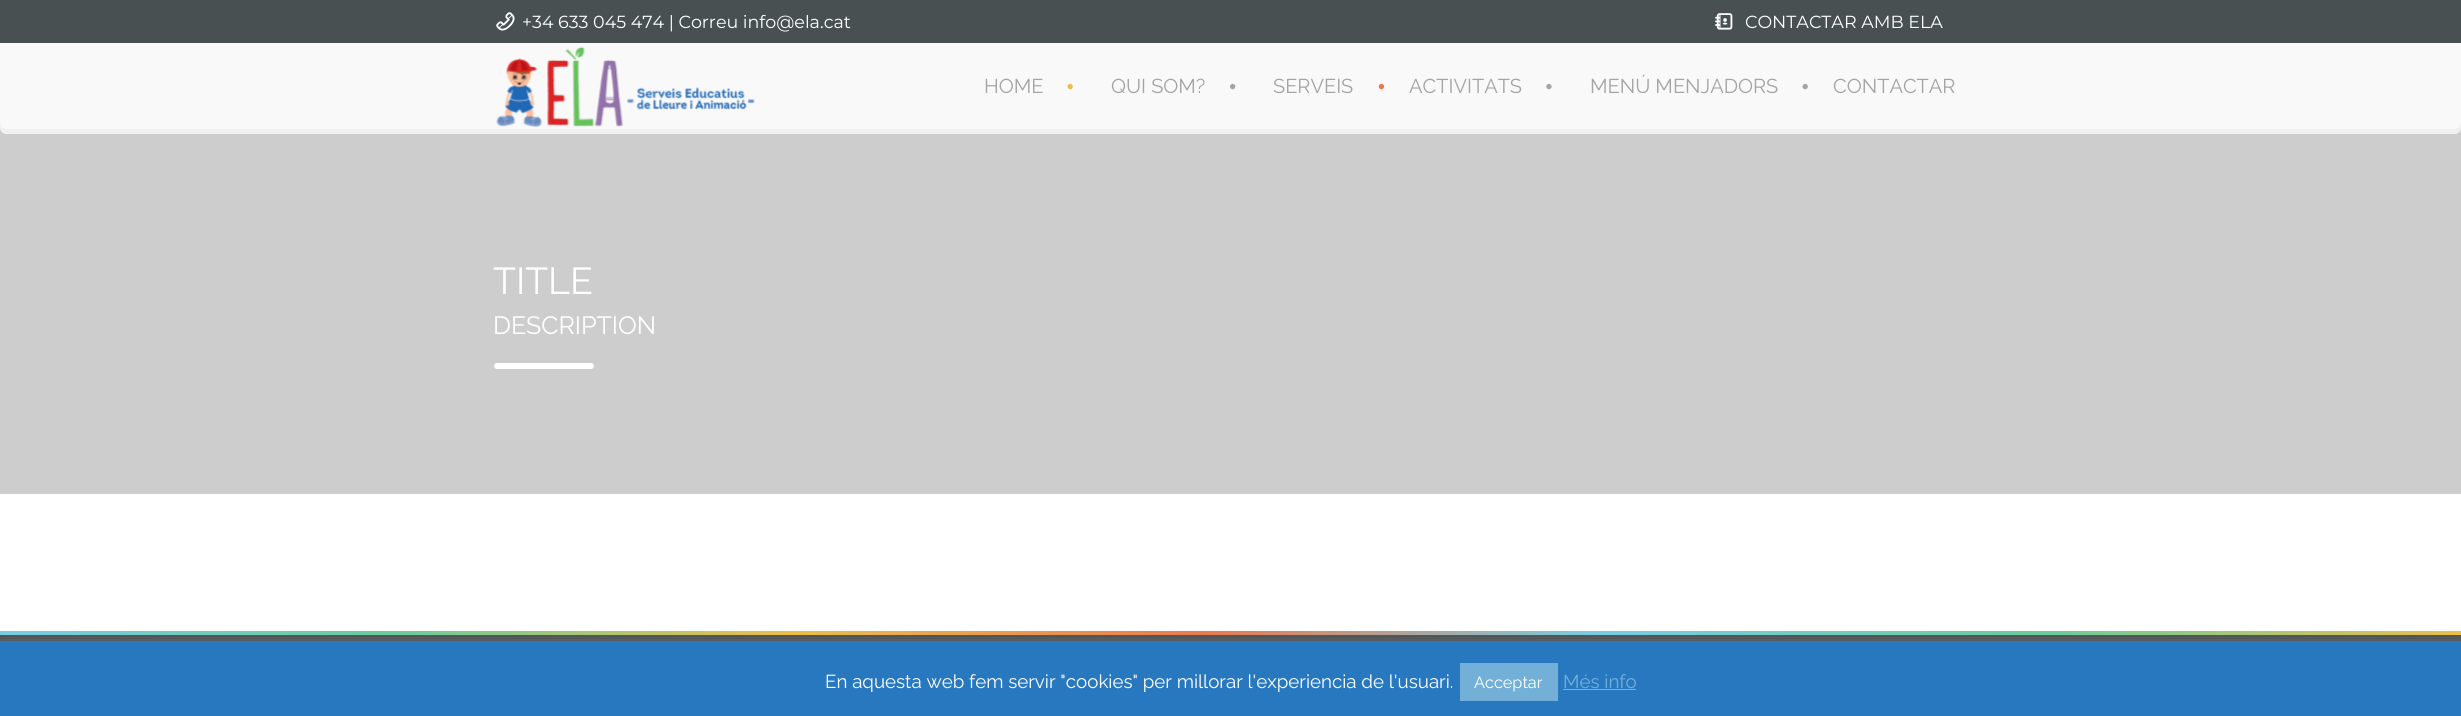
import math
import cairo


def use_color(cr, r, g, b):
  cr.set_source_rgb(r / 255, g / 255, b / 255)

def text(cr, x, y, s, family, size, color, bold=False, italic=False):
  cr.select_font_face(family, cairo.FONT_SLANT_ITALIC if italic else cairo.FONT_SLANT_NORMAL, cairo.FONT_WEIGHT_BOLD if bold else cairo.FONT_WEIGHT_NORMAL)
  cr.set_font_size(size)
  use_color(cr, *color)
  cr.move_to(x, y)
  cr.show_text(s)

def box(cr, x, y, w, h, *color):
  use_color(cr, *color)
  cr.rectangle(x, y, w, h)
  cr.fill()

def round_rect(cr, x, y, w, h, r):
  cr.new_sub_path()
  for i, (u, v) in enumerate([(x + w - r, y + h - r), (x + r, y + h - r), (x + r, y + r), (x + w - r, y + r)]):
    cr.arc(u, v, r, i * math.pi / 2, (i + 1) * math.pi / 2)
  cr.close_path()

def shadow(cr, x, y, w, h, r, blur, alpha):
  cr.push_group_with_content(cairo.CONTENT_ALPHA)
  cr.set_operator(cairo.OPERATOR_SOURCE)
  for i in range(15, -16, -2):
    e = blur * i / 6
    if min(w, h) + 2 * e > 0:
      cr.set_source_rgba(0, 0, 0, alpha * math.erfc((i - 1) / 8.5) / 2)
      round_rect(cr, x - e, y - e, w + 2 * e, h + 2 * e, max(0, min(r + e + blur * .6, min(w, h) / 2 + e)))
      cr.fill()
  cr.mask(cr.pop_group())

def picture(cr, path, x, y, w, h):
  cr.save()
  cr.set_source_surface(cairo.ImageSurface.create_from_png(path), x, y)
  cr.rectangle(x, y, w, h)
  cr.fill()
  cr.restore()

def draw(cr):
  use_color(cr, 255, 255, 255)
  cr.paint()
  box(cr, 0, 0, 2461, 43, 73, 80, 82)
  picture(cr, "img_01.png", 496, 12, 19, 19)
  picture(cr, "img_02.png", 1715, 13, 18, 17)
  box(cr, 0, 123, 2461, 371, 205, 205, 205)
  use_color(cr, 241, 241, 241)
  cr.new_path()
  cr.move_to(0, 122)
  cr.line_to(0, 128)
  cr.curve_to(0, 131, 3, 134, 6, 134)
  cr.line_to(2455, 134)
  cr.curve_to(2458, 134, 2461, 131, 2461, 128)
  cr.line_to(2461, 124)
  cr.curve_to(2460, 127, 2458, 129, 2455, 129)
  cr.line_to(6, 129)
  cr.curve_to(3, 129, 0, 126, 0, 122)
  cr.close_path()
  cr.fill()
  use_color(cr, 249, 249, 249)
  cr.new_path()
  cr.move_to(0, 43)
  cr.line_to(2461, 43)
  cr.line_to(2461, 123)
  cr.curve_to(2461, 126.5, 2458.5, 129, 2455, 129)
  cr.line_to(6, 129)
  cr.curve_to(2.5, 129, 0, 126.5, 0, 123)
  cr.close_path()
  cr.fill()
  picture(cr, "img_03.png", 496, 46, 259, 82)
  picture(cr, "img_04.png", 1067, 83, 6, 7)
  picture(cr, "img_05.png", 1230, 83, 6, 7)
  picture(cr, "img_06.png", 1378, 83, 7, 7)
  picture(cr, "img_07.png", 1546, 83, 6, 7)
  picture(cr, "img_08.png", 1802, 83, 6, 7)
  use_color(cr, 255, 255, 255)
  round_rect(cr, 494, 363, 100, 6, 3)
  cr.fill()
  gradient = cairo.LinearGradient(0, 633, 2461, 633)
  gradient.add_color_stop_rgba(0, 0.455, 0.808, 0.894, 1)
  gradient.add_color_stop_rgba(0.16, 0.4, 0.808, 0.612, 1)
  gradient.add_color_stop_rgba(0.32, 0.929, 0.749, 0.278, 1)
  gradient.add_color_stop_rgba(0.49, 0.925, 0.467, 0.294, 1)
  gradient.add_color_stop_rgba(0.65, 0.455, 0.808, 0.894, 1)
  gradient.add_color_stop_rgba(0.83, 0.4, 0.808, 0.612, 1)
  gradient.add_color_stop_rgba(1, 0.929, 0.749, 0.278, 1)
  cr.set_source(gradient)
  cr.rectangle(0, 631, 2461, 4)
  cr.fill()
  box(cr, 0, 635, 2461, 6, 73, 80, 82)
  use_color(cr, 172, 171, 171)
  shadow(cr, 0, 640, 2461, 75, 0, 6, 0.3)
  box(cr, 0, 641, 2461, 75, 40, 120, 191)
  box(cr, 1460, 663, 98, 38, 114, 176, 216)
  box(cr, 1563, 689, 73, 1, 114, 176, 216)
  text(cr, 522, 28, "+34 633 045 474 | Correu info@ela.cat", "Montserrat Thin", 17.5, (255, 255, 255))
  text(cr, 1745, 28, "CONTACTAR AMB ELA", "Montserrat Thin", 17.5, (255, 255, 255))
  text(cr, 984, 93, "HOME", "Raleway Thin", 20, (164, 164, 164))
  text(cr, 1111, 93, "QUI SOM?", "Raleway Thin", 20, (164, 164, 164))
  text(cr, 1273, 93, "SERVEIS", "Raleway Thin", 20, (164, 164, 164))
  text(cr, 1409, 93, "ACTIVITATS", "Raleway Thin", 20, (164, 164, 164))
  text(cr, 1590, 93, "MENÚ MENJADORS", "Raleway Thin", 20, (164, 164, 164))
  text(cr, 1833, 93, "CONTACTAR", "Raleway Thin", 20, (164, 164, 164))
  text(cr, 493, 294, "TITLE", "Raleway Thin", 37.5, (255, 255, 255))
  text(cr, 493, 334, "DESCRIPTION", "Raleway Thin", 25, (255, 255, 255))
  text(cr, 825, 688, "En aquesta web fem servir \"cookies\" per millorar l'experiencia de l'usuari.", "Raleway Thin", 18.75, (255, 255, 255))
  text(cr, 1474, 688, "Acceptar", "Raleway Thin", 16.25, (255, 255, 255))
  text(cr, 1563, 688, "Més info", "Raleway Thin", 18.75, (114, 176, 216))


surface = cairo.ImageSurface(cairo.FORMAT_RGB24, 2461, 716)
cr = cairo.Context(surface)
options = cairo.FontOptions()
options.set_hint_metrics(cairo.HINT_METRICS_OFF)
options.set_hint_style(cairo.HINT_STYLE_NONE)
cr.set_font_options(options)
cr.set_miter_limit(4)
draw(cr)
surface.write_to_png("out.png")
